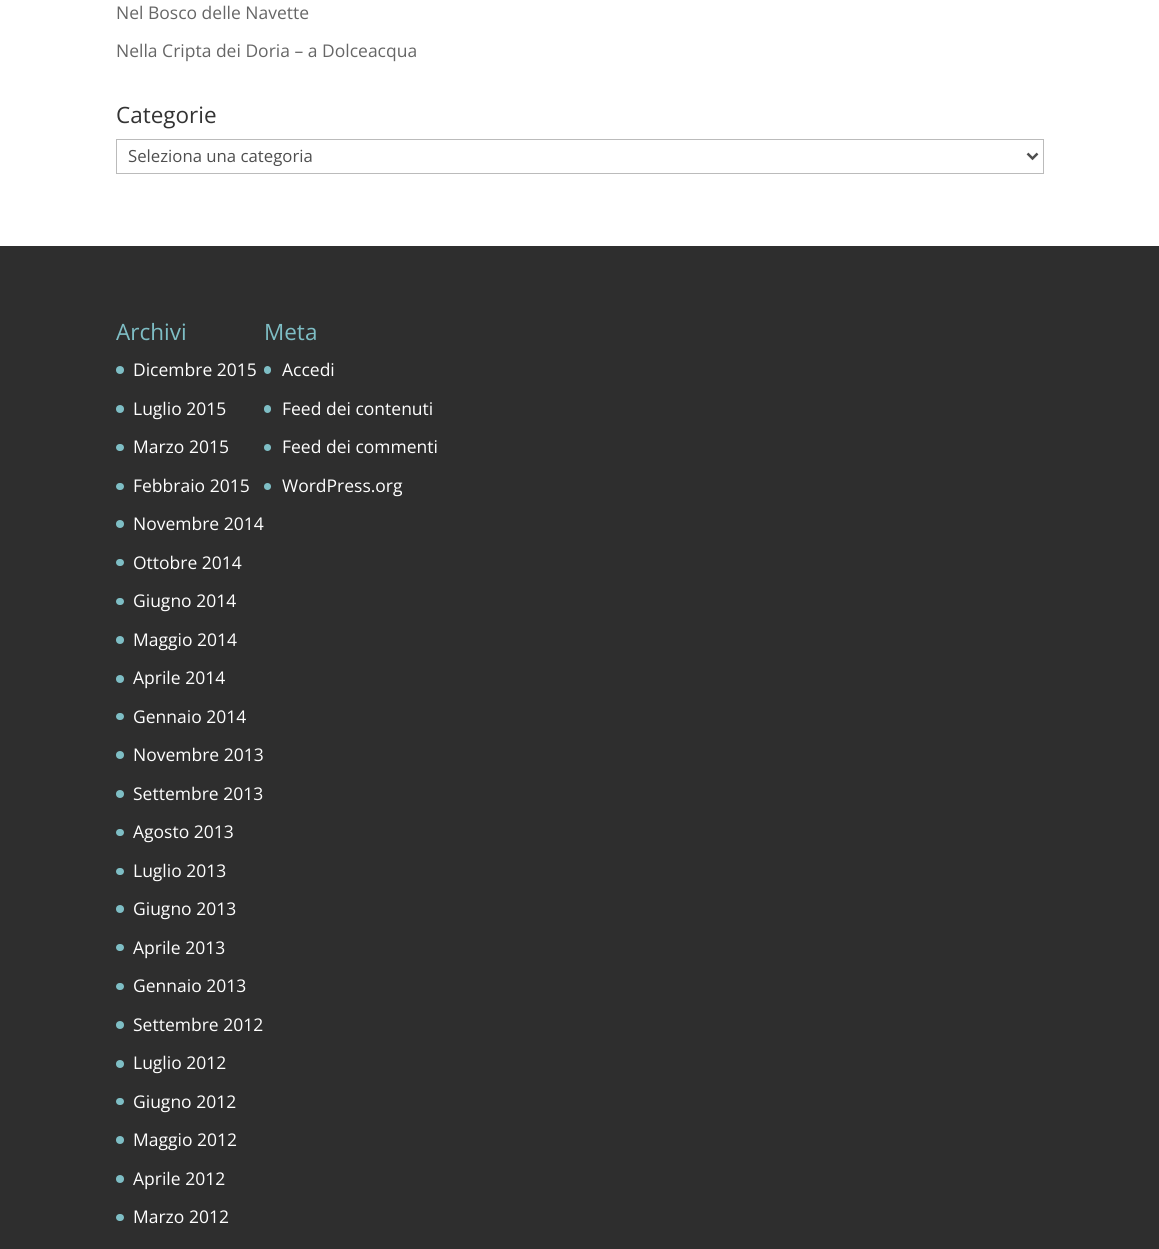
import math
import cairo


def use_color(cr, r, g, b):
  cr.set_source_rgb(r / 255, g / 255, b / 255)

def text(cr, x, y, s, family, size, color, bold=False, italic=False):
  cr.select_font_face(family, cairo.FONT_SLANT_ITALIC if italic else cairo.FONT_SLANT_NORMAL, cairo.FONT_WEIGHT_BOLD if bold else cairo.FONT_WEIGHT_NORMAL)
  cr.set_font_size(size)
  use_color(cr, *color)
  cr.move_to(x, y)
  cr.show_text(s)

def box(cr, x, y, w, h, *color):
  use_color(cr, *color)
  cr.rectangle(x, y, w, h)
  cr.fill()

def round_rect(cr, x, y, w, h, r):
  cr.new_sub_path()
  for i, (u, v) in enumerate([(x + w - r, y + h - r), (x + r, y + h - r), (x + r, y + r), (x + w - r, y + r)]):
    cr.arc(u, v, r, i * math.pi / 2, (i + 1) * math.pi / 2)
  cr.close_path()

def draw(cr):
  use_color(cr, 255, 255, 255)
  cr.paint()
  cr.rectangle(116.5, 139.5, 927, 34)
  use_color(cr, 187, 187, 187)
  cr.set_line_width(1)
  cr.stroke()
  cr.new_path()
  cr.move_to(1027.5, 153.5)
  cr.line_to(1032.5, 158.5)
  cr.line_to(1037.5, 153.5)
  use_color(cr, 78, 78, 78)
  cr.set_line_width(2.5)
  cr.stroke()
  box(cr, 0, 246, 1159, 1003, 46, 46, 46)
  use_color(cr, 126, 190, 197)
  cr.arc(120, 370, 4, 0, 2 * math.pi)
  cr.fill()
  cr.arc(120, 409, 4, 0, 2 * math.pi)
  cr.fill()
  round_rect(cr, 116, 444, 8, 7, 3.5)
  cr.fill()
  round_rect(cr, 116, 483, 8, 7, 3.5)
  cr.fill()
  cr.arc(120, 524, 4, 0, 2 * math.pi)
  cr.fill()
  round_rect(cr, 116, 559, 8, 7, 3.5)
  cr.fill()
  round_rect(cr, 116, 598, 8, 7, 3.5)
  cr.fill()
  cr.arc(120, 640, 4, 0, 2 * math.pi)
  cr.fill()
  cr.arc(120, 679, 4, 0, 2 * math.pi)
  cr.fill()
  round_rect(cr, 116, 713, 8, 7, 3.5)
  cr.fill()
  cr.arc(120, 755, 4, 0, 2 * math.pi)
  cr.fill()
  cr.arc(120, 794, 4, 0, 2 * math.pi)
  cr.fill()
  round_rect(cr, 116, 829, 8, 7, 3.5)
  cr.fill()
  round_rect(cr, 116, 868, 8, 7, 3.5)
  cr.fill()
  cr.arc(120, 909, 4, 0, 2 * math.pi)
  cr.fill()
  round_rect(cr, 116, 944, 8, 7, 3.5)
  cr.fill()
  round_rect(cr, 116, 983, 8, 7, 3.5)
  cr.fill()
  cr.arc(120, 1025, 4, 0, 2 * math.pi)
  cr.fill()
  cr.arc(120, 1064, 4, 0, 2 * math.pi)
  cr.fill()
  round_rect(cr, 116, 1098, 8, 7, 3.5)
  cr.fill()
  cr.arc(120, 1140, 4, 0, 2 * math.pi)
  cr.fill()
  cr.arc(120, 1179, 4, 0, 2 * math.pi)
  cr.fill()
  round_rect(cr, 116, 1214, 8, 7, 3.5)
  cr.fill()
  round_rect(cr, 264, 366, 7, 8, 3.5)
  cr.fill()
  round_rect(cr, 264, 405, 7, 8, 3.5)
  cr.fill()
  cr.arc(267.5, 447.5, 3.5, 0, 2 * math.pi)
  cr.fill()
  cr.arc(267.5, 486.5, 3.5, 0, 2 * math.pi)
  cr.fill()
  text(cr, 116, 19, "Nel Bosco delle Navette", "Open Sans", 17.5, (102, 102, 102))
  text(cr, 116, 57, "Nella Cripta dei Doria – a Dolceacqua", "Open Sans", 17.5, (102, 102, 102))
  text(cr, 116, 123, "Categorie", "Open Sans", 22.5, (51, 51, 51))
  text(cr, 128, 162, "Seleziona una categoria", "Open Sans", 16.75, (78, 78, 78))
  text(cr, 116, 340, "Archivi", "Open Sans", 22.5, (126, 190, 197))
  text(cr, 133, 376, "Dicembre 2015", "Open Sans", 17.5, (255, 255, 255))
  text(cr, 133, 415, "Luglio 2015", "Open Sans", 17.5, (255, 255, 255))
  text(cr, 133, 453, "Marzo 2015", "Open Sans", 17.5, (255, 255, 255))
  text(cr, 133, 492, "Febbraio 2015", "Open Sans", 17.5, (255, 255, 255))
  text(cr, 133, 530, "Novembre 2014", "Open Sans", 17.5, (255, 255, 255))
  text(cr, 133, 569, "Ottobre 2014", "Open Sans", 17.5, (255, 255, 255))
  text(cr, 133, 607, "Giugno 2014", "Open Sans", 17.5, (255, 255, 255))
  text(cr, 133, 646, "Maggio 2014", "Open Sans", 17.5, (255, 255, 255))
  text(cr, 133, 684, "Aprile 2014", "Open Sans", 17.5, (255, 255, 255))
  text(cr, 133, 723, "Gennaio 2014", "Open Sans", 17.5, (255, 255, 255))
  text(cr, 133, 761, "Novembre 2013", "Open Sans", 17.5, (255, 255, 255))
  text(cr, 133, 800, "Settembre 2013", "Open Sans", 17.5, (255, 255, 255))
  text(cr, 133, 838, "Agosto 2013", "Open Sans", 17.5, (255, 255, 255))
  text(cr, 133, 877, "Luglio 2013", "Open Sans", 17.5, (255, 255, 255))
  text(cr, 133, 915, "Giugno 2013", "Open Sans", 17.5, (255, 255, 255))
  text(cr, 133, 954, "Aprile 2013", "Open Sans", 17.5, (255, 255, 255))
  text(cr, 133, 992, "Gennaio 2013", "Open Sans", 17.5, (255, 255, 255))
  text(cr, 133, 1031, "Settembre 2012", "Open Sans", 17.5, (255, 255, 255))
  text(cr, 133, 1069, "Luglio 2012", "Open Sans", 17.5, (255, 255, 255))
  text(cr, 133, 1108, "Giugno 2012", "Open Sans", 17.5, (255, 255, 255))
  text(cr, 133, 1146, "Maggio 2012", "Open Sans", 17.5, (255, 255, 255))
  text(cr, 133, 1185, "Aprile 2012", "Open Sans", 17.5, (255, 255, 255))
  text(cr, 133, 1223, "Marzo 2012", "Open Sans", 17.5, (255, 255, 255))
  text(cr, 264, 340, "Meta", "Open Sans", 22.5, (126, 190, 197))
  text(cr, 282, 376, "Accedi", "Open Sans", 17.5, (255, 255, 255))
  text(cr, 282, 415, "Feed dei contenuti", "Open Sans", 17.5, (255, 255, 255))
  text(cr, 282, 453, "Feed dei commenti", "Open Sans", 17.5, (255, 255, 255))
  text(cr, 282, 492, "WordPress.org", "Open Sans", 17.5, (255, 255, 255))


surface = cairo.ImageSurface(cairo.FORMAT_RGB24, 1159, 1249)
cr = cairo.Context(surface)
options = cairo.FontOptions()
options.set_hint_metrics(cairo.HINT_METRICS_OFF)
options.set_hint_style(cairo.HINT_STYLE_NONE)
cr.set_font_options(options)
cr.set_miter_limit(4)
draw(cr)
surface.write_to_png("out.png")
